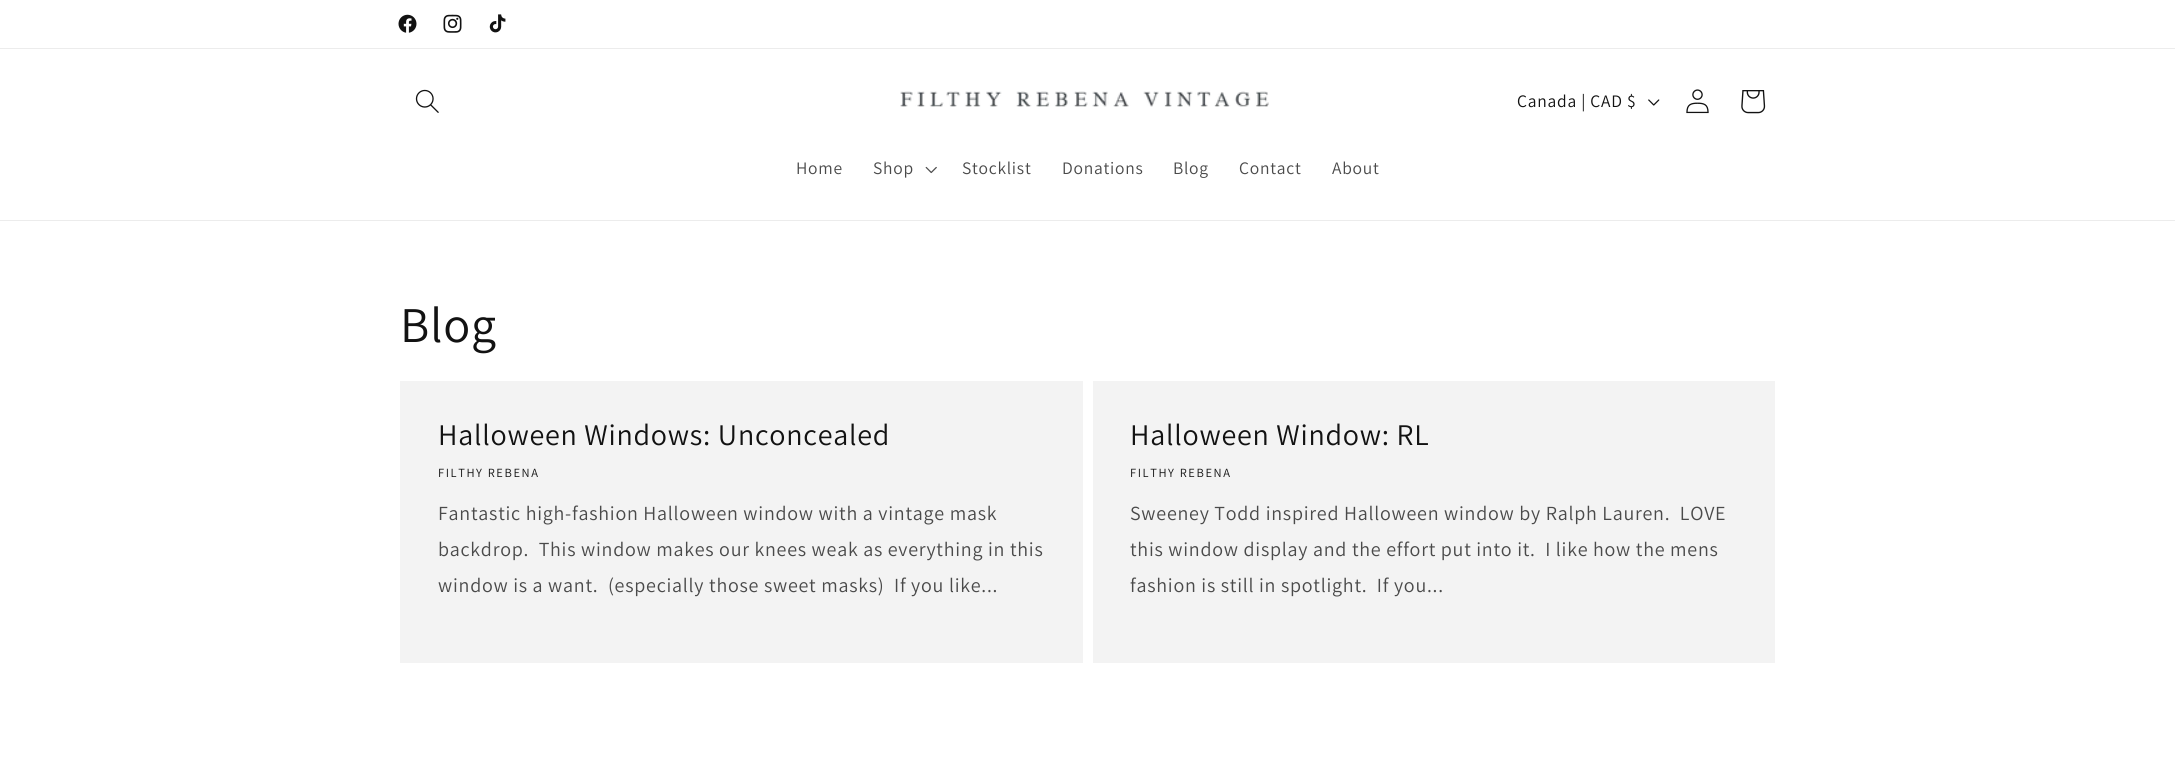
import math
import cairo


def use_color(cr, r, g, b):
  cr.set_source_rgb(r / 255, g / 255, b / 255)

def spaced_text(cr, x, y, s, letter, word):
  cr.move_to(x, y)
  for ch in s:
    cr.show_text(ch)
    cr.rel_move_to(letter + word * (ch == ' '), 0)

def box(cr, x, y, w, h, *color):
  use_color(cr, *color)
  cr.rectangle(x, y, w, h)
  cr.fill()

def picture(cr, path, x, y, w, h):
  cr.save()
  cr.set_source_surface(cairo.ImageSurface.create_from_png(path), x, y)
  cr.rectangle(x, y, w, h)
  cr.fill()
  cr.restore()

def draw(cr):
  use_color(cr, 255, 255, 255)
  cr.paint()
  box(cr, 0, 48, 2175, 1, 236, 236, 236)
  picture(cr, "img_01.png", 398, 14, 19, 19)
  picture(cr, "img_02.png", 443, 14, 19, 19)
  picture(cr, "img_03.png", 489, 14, 17, 19)
  box(cr, 0, 220, 2175, 1, 236, 236, 236)
  picture(cr, "img_04.png", 415, 89, 24, 24)
  picture(cr, "img_05.png", 900, 91, 369, 16)
  picture(cr, "img_06.png", 1648, 99, 12, 7)
  picture(cr, "img_07.png", 1686, 89, 23, 25)
  picture(cr, "img_08.png", 1741, 90, 25, 24)
  picture(cr, "img_09.png", 925, 166, 12, 8)
  box(cr, 400, 381, 683, 282, 243, 243, 243)
  box(cr, 1093, 381, 682, 282, 243, 243, 243)
  cr.select_font_face("Assistant")
  cr.set_font_size(17.5)
  use_color(cr, 18, 18, 18)
  spaced_text(cr, 1517, 107, "Canada | CAD $", 0.75, 0)
  use_color(cr, 74, 74, 74)
  spaced_text(cr, 796, 174, "Home", 0.75, 0)
  spaced_text(cr, 873, 174, "Shop", 0.75, 0)
  spaced_text(cr, 962, 174, "Stocklist", 0.75, 0)
  spaced_text(cr, 1062, 174, "Donations", 0.75, 0)
  spaced_text(cr, 1173, 174, "Blog", 0.75, 0)
  spaced_text(cr, 1239, 174, "Contact", 0.75, 0)
  spaced_text(cr, 1332, 174, "About", 0.75, 0)
  cr.set_font_size(50)
  use_color(cr, 18, 18, 18)
  spaced_text(cr, 400, 342, "Blog", 0.75, 0)
  cr.set_font_size(30)
  spaced_text(cr, 438, 445, "Halloween Windows: Unconcealed", 0.75, 0)
  cr.set_font_size(12.5)
  spaced_text(cr, 438, 477, "FILTHY REBENA", 1.6, 0)
  cr.set_font_size(20)
  use_color(cr, 74, 74, 74)
  spaced_text(cr, 438, 520, "Fantastic high-fashion Halloween window with a vintage mask", 0.75, 0)
  spaced_text(cr, 438, 556, "backdrop.  This window makes our knees weak as everything in this", 0.75, 0)
  spaced_text(cr, 438, 592, "window is a want.  (especially those sweet masks)  If you like...", 0.75, 0)
  cr.set_font_size(30)
  use_color(cr, 18, 18, 18)
  spaced_text(cr, 1130, 445, "Halloween Window: RL", 0.75, 0)
  cr.set_font_size(12.5)
  spaced_text(cr, 1130, 477, "FILTHY REBENA", 1.6, 0)
  cr.set_font_size(20)
  use_color(cr, 74, 74, 74)
  spaced_text(cr, 1130, 520, "Sweeney Todd inspired Halloween window by Ralph Lauren.  LOVE", 0.75, 0)
  spaced_text(cr, 1130, 556, "this window display and the effort put into it.  I like how the mens", 0.75, 0)
  spaced_text(cr, 1130, 592, "fashion is still in spotlight.  If you...", 0.75, 0)


surface = cairo.ImageSurface(cairo.FORMAT_RGB24, 2175, 759)
cr = cairo.Context(surface)
options = cairo.FontOptions()
options.set_hint_metrics(cairo.HINT_METRICS_OFF)
options.set_hint_style(cairo.HINT_STYLE_NONE)
cr.set_font_options(options)
cr.set_miter_limit(4)
draw(cr)
surface.write_to_png("out.png")
